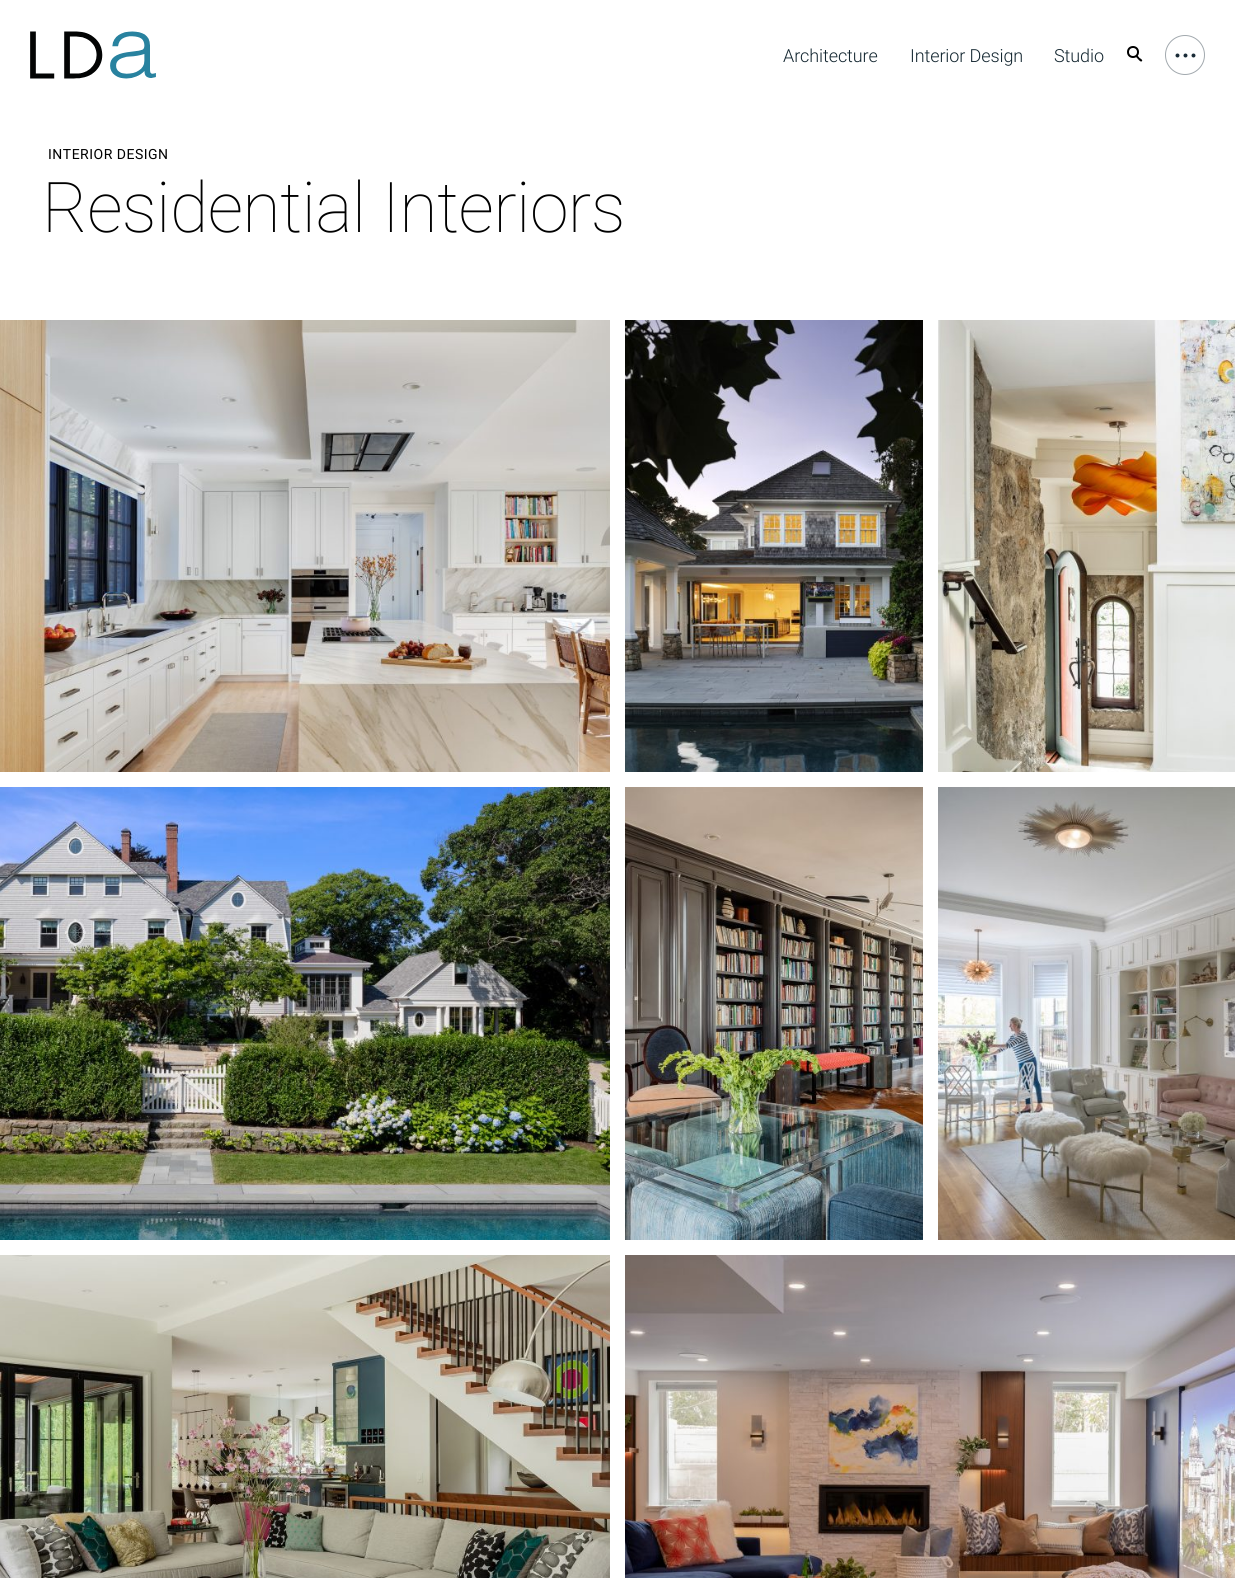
import math
import cairo


def use_color(cr, r, g, b):
  cr.set_source_rgb(r / 255, g / 255, b / 255)

def spaced_text(cr, x, y, s, letter, word):
  cr.move_to(x, y)
  for ch in s:
    cr.show_text(ch)
    cr.rel_move_to(letter + word * (ch == ' '), 0)

def picture(cr, path, x, y, w, h):
  cr.save()
  cr.set_source_surface(cairo.ImageSurface.create_from_png(path), x, y)
  cr.rectangle(x, y, w, h)
  cr.fill()
  cr.restore()

def draw(cr):
  use_color(cr, 255, 255, 255)
  cr.paint()
  picture(cr, "img_01.png", 30, 31, 126, 48)
  cr.arc(1133, 52, 5, 0, 2 * math.pi)
  use_color(cr, 0, 0, 0)
  cr.stroke()
  cr.new_path()
  cr.move_to(1137.5, 55.5)
  cr.line_to(1139.5, 58)
  cr.curve_to(1140.5, 58.5, 1143, 60, 1142, 61)
  cr.curve_to(1141, 63, 1138, 59, 1137.5, 58.5)
  cr.line_to(1136, 57)
  cr.curve_to(1135.5, 56, 1137, 55, 1137.5, 55.5)
  cr.close_path()
  cr.fill()
  picture(cr, "img_02.png", 1175, 53, 21, 5)
  cr.arc(1185, 55, 19.5, 0, 2 * math.pi)
  use_color(cr, 162, 169, 174)
  cr.set_line_width(1)
  cr.stroke()
  picture(cr, "img_03.png", 0, 320, 610, 452)
  picture(cr, "img_04.png", 625, 320, 298, 452)
  picture(cr, "img_05.png", 938, 320, 297, 452)
  picture(cr, "img_06.png", 0, 787, 610, 453)
  picture(cr, "img_07.png", 625, 787, 298, 453)
  picture(cr, "img_08.png", 938, 787, 297, 453)
  picture(cr, "img_09.png", 0, 1255, 610, 323)
  picture(cr, "img_10.png", 625, 1255, 610, 323)
  cr.select_font_face("Roboto Light")
  cr.set_font_size(18)
  use_color(cr, 19, 38, 48)
  spaced_text(cr, 783, 62, "Architecture", -0.1, 0)
  spaced_text(cr, 910, 62, "Interior Design", -0.1, 0)
  spaced_text(cr, 1054, 62, "Studio", -0.1, 0)
  cr.select_font_face("Roboto")
  cr.set_font_size(14)
  use_color(cr, 0, 0, 0)
  spaced_text(cr, 48, 159, "INTERIOR DESIGN", 0.5, 0)
  cr.select_font_face("Roboto Thin")
  cr.set_font_size(70)
  spaced_text(cr, 42, 232, "Residential Interiors", -0.6, 0)


surface = cairo.ImageSurface(cairo.FORMAT_RGB24, 1235, 1578)
cr = cairo.Context(surface)
options = cairo.FontOptions()
options.set_hint_metrics(cairo.HINT_METRICS_OFF)
options.set_hint_style(cairo.HINT_STYLE_NONE)
cr.set_font_options(options)
cr.set_miter_limit(4)
draw(cr)
surface.write_to_png("out.png")
